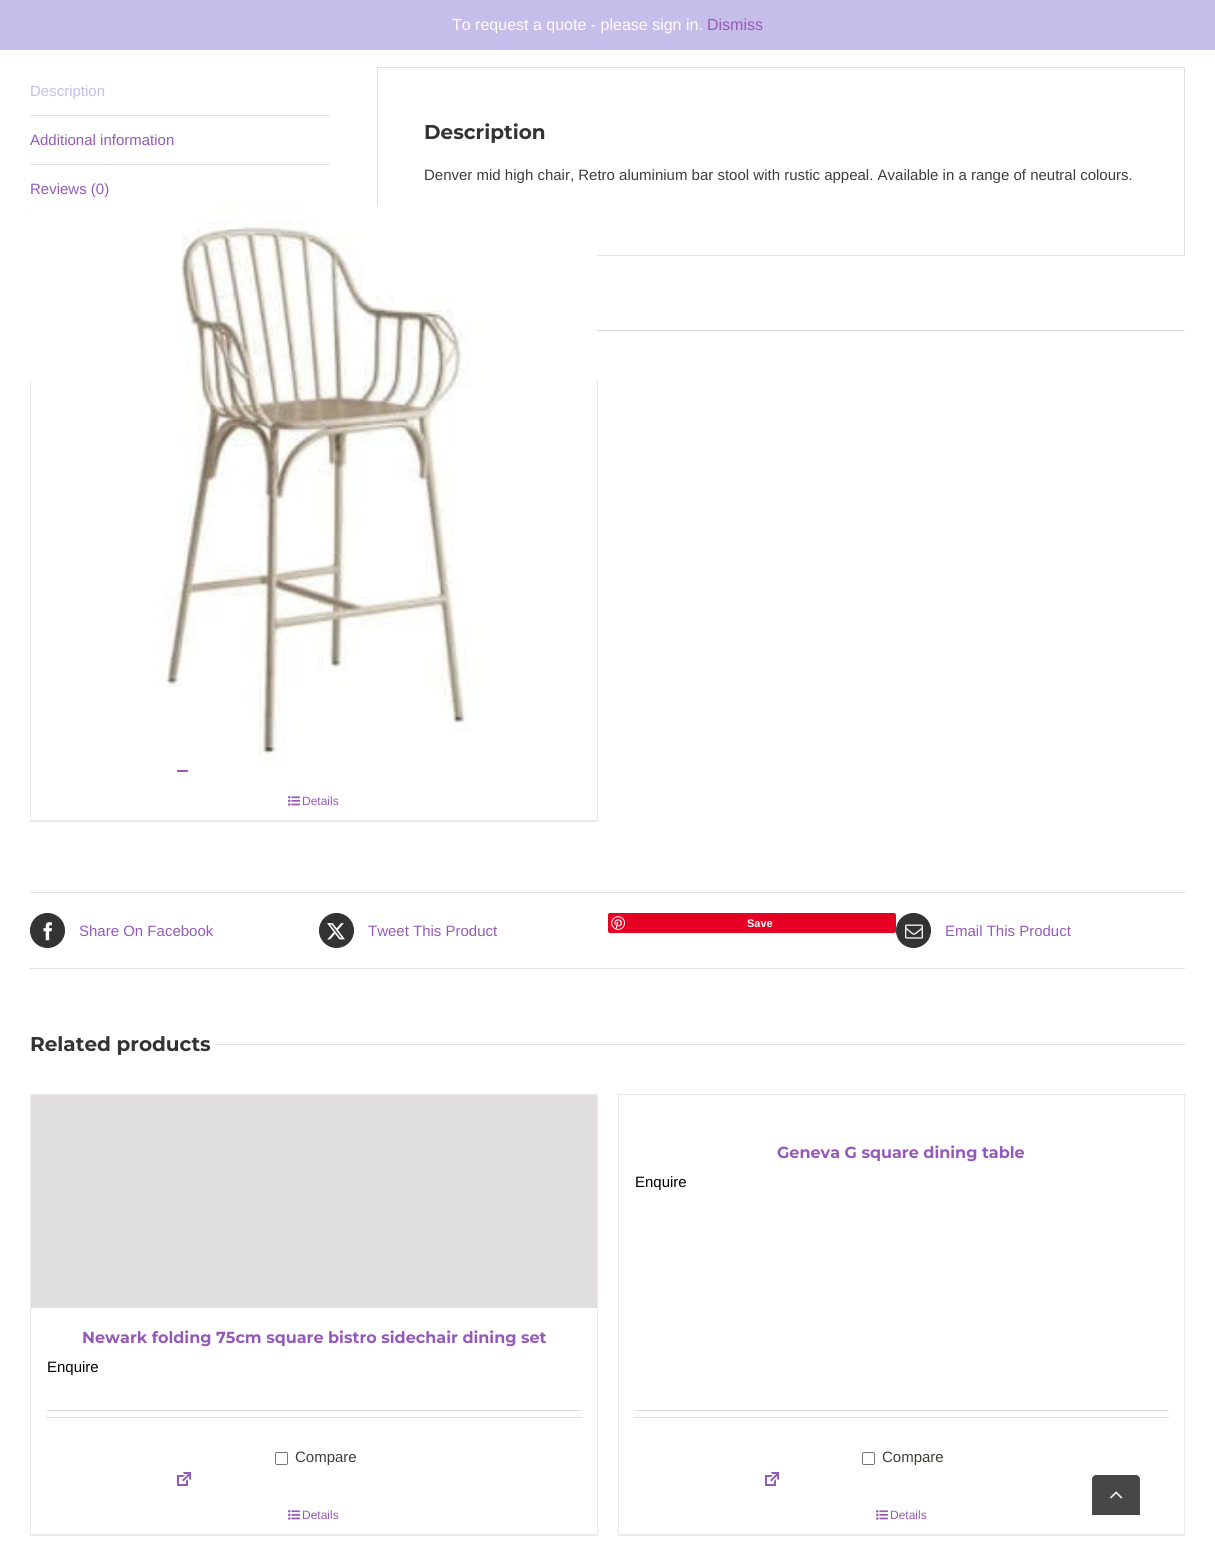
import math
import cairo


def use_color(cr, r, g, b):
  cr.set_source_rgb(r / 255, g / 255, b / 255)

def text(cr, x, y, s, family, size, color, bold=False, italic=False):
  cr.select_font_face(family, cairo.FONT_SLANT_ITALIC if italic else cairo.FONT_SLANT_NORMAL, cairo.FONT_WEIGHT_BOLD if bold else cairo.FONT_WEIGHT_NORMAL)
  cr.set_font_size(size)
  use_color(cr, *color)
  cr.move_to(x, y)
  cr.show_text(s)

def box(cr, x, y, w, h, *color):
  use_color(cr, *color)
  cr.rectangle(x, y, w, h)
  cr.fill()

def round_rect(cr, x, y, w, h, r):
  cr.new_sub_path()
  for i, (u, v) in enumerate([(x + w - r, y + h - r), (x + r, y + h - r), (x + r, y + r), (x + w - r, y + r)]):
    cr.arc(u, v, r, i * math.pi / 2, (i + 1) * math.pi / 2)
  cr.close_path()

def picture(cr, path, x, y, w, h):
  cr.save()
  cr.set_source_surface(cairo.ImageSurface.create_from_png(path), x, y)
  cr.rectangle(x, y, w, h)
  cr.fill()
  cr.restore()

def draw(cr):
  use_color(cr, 255, 255, 255)
  cr.paint()
  box(cr, 0, 0, 1215, 50, 198, 189, 234)
  box(cr, 30, 115, 300, 1, 224, 222, 222)
  box(cr, 30, 164, 300, 1, 224, 222, 222)
  box(cr, 30, 213, 1, 1, 224, 222, 222)
  cr.rectangle(377.5, 67.5, 807, 188)
  cr.set_line_width(1)
  cr.stroke()
  box(cr, 597, 330, 588, 1, 224, 222, 222)
  box(cr, 597, 380, 1, 442, 235, 234, 234)
  box(cr, 30, 820, 568, 2, 235, 234, 234)
  box(cr, 30, 380, 1, 442, 235, 234, 234)
  picture(cr, "img_01.png", 31, 205, 566, 565)
  picture(cr, "img_02.png", 177, 770, 11, 2)
  picture(cr, "img_03.png", 288, 796, 12, 10)
  box(cr, 30, 892, 1155, 1, 224, 222, 222)
  box(cr, 30, 968, 1155, 1, 224, 222, 222)
  use_color(cr, 230, 0, 35)
  round_rect(cr, 608, 913, 288, 20, 2)
  cr.fill()
  picture(cr, "img_04.png", 611, 916, 14, 14)
  use_color(cr, 51, 51, 51)
  cr.arc(47.5, 930.5, 17, 0, 2 * math.pi)
  cr.fill_preserve()
  cr.stroke()
  picture(cr, "img_05.png", 43, 922, 9, 19)
  cr.arc(336.5, 930.5, 17, 0, 2 * math.pi)
  cr.fill_preserve()
  cr.stroke()
  picture(cr, "img_06.png", 327, 923, 18, 17)
  cr.arc(913.5, 930.5, 17, 0, 2 * math.pi)
  cr.fill_preserve()
  cr.stroke()
  picture(cr, "img_07.png", 905, 924, 18, 15)
  box(cr, 215, 1044, 970, 1, 224, 222, 222)
  box(cr, 30, 1094, 568, 1, 235, 234, 234)
  box(cr, 597, 1094, 1, 442, 235, 234, 234)
  box(cr, 30, 1534, 568, 2, 235, 234, 234)
  box(cr, 30, 1094, 1, 442, 235, 234, 234)
  box(cr, 31, 1095, 566, 213, 224, 222, 222)
  box(cr, 46, 1410, 536, 1, 224, 222, 222)
  box(cr, 46, 1417, 536, 1, 224, 222, 222)
  round_rect(cr, 275.5, 1452.5, 12, 12, 1.5)
  use_color(cr, 118, 118, 118)
  cr.stroke()
  picture(cr, "img_08.png", 177, 1472, 14, 14)
  picture(cr, "img_03.png", 288, 1510, 12, 10)
  box(cr, 618, 1094, 567, 1, 235, 234, 234)
  box(cr, 1184, 1094, 1, 442, 235, 234, 234)
  box(cr, 618, 1534, 567, 2, 235, 234, 234)
  box(cr, 618, 1094, 1, 442, 235, 234, 234)
  box(cr, 634, 1410, 535, 1, 224, 222, 222)
  box(cr, 634, 1417, 535, 1, 224, 222, 222)
  round_rect(cr, 862.5, 1452.5, 12, 12, 1.5)
  use_color(cr, 118, 118, 118)
  cr.stroke()
  picture(cr, "img_08.png", 765, 1472, 14, 14)
  picture(cr, "img_03.png", 876, 1510, 12, 10)
  use_color(cr, 71, 71, 71)
  cr.new_path()
  cr.move_to(1096, 1475)
  cr.line_to(1136, 1475)
  cr.curve_to(1138, 1475, 1140, 1477, 1140, 1479)
  cr.line_to(1140, 1515)
  cr.line_to(1092, 1515)
  cr.line_to(1092, 1479)
  cr.curve_to(1092, 1477, 1094, 1475, 1096, 1475)
  cr.close_path()
  cr.fill()
  picture(cr, "img_09.png", 1110, 1491, 13, 8)
  text(cr, 452, 30, "To request a quote - please sign in.", "Liberation Sans", 16, (255, 255, 255))
  text(cr, 707, 30, "Dismiss", "Liberation Sans", 16, (149, 90, 184))
  text(cr, 30, 96, "Description", "Liberation Sans", 15, (198, 189, 234))
  text(cr, 30, 145, "Additional information", "Liberation Sans", 15, (149, 90, 184))
  text(cr, 30, 194, "Reviews (0)", "Liberation Sans", 15, (149, 90, 184))
  text(cr, 424, 139, "Description", "Montserrat", 20, (51, 51, 51), bold=True)
  text(cr, 424, 180, "Denver mid high chair, Retro aluminium bar stool with rustic appeal. Available in a range of neutral colours.", "Liberation Sans", 15, (62, 61, 57))
  text(cr, 302, 805, "Details", "Liberation Sans", 12, (149, 90, 184))
  text(cr, 747, 927, "Save", "Liberation Sans", 11, (255, 255, 255), bold=True)
  text(cr, 79, 936, "Share On Facebook", "Liberation Sans", 15, (149, 90, 184))
  text(cr, 368, 936, "Tweet This Product", "Liberation Sans", 15, (149, 90, 184))
  text(cr, 945, 936, "Email This Product", "Liberation Sans", 15, (149, 90, 184))
  text(cr, 30, 1051, "Related products", "Montserrat", 20, (51, 51, 51), bold=True)
  text(cr, 82, 1343, "Newark folding 75cm square bistro sidechair dining set", "Montserrat", 16, (149, 90, 184), bold=True)
  text(cr, 47, 1372, "Enquire", "Liberation Sans", 15, (0, 0, 0))
  text(cr, 295, 1462, "Compare", "Liberation Sans", 15, (62, 61, 57))
  text(cr, 302, 1519, "Details", "Liberation Sans", 12, (149, 90, 184))
  text(cr, 777, 1158, "Geneva G square dining table", "Montserrat", 16, (149, 90, 184), bold=True)
  text(cr, 635, 1187, "Enquire", "Liberation Sans", 15, (0, 0, 0))
  text(cr, 882, 1462, "Compare", "Liberation Sans", 15, (62, 61, 57))
  text(cr, 890, 1519, "Details", "Liberation Sans", 12, (149, 90, 184))


surface = cairo.ImageSurface(cairo.FORMAT_RGB24, 1215, 1545)
cr = cairo.Context(surface)
options = cairo.FontOptions()
options.set_hint_metrics(cairo.HINT_METRICS_OFF)
options.set_hint_style(cairo.HINT_STYLE_NONE)
cr.set_font_options(options)
cr.set_miter_limit(4)
draw(cr)
surface.write_to_png("out.png")
